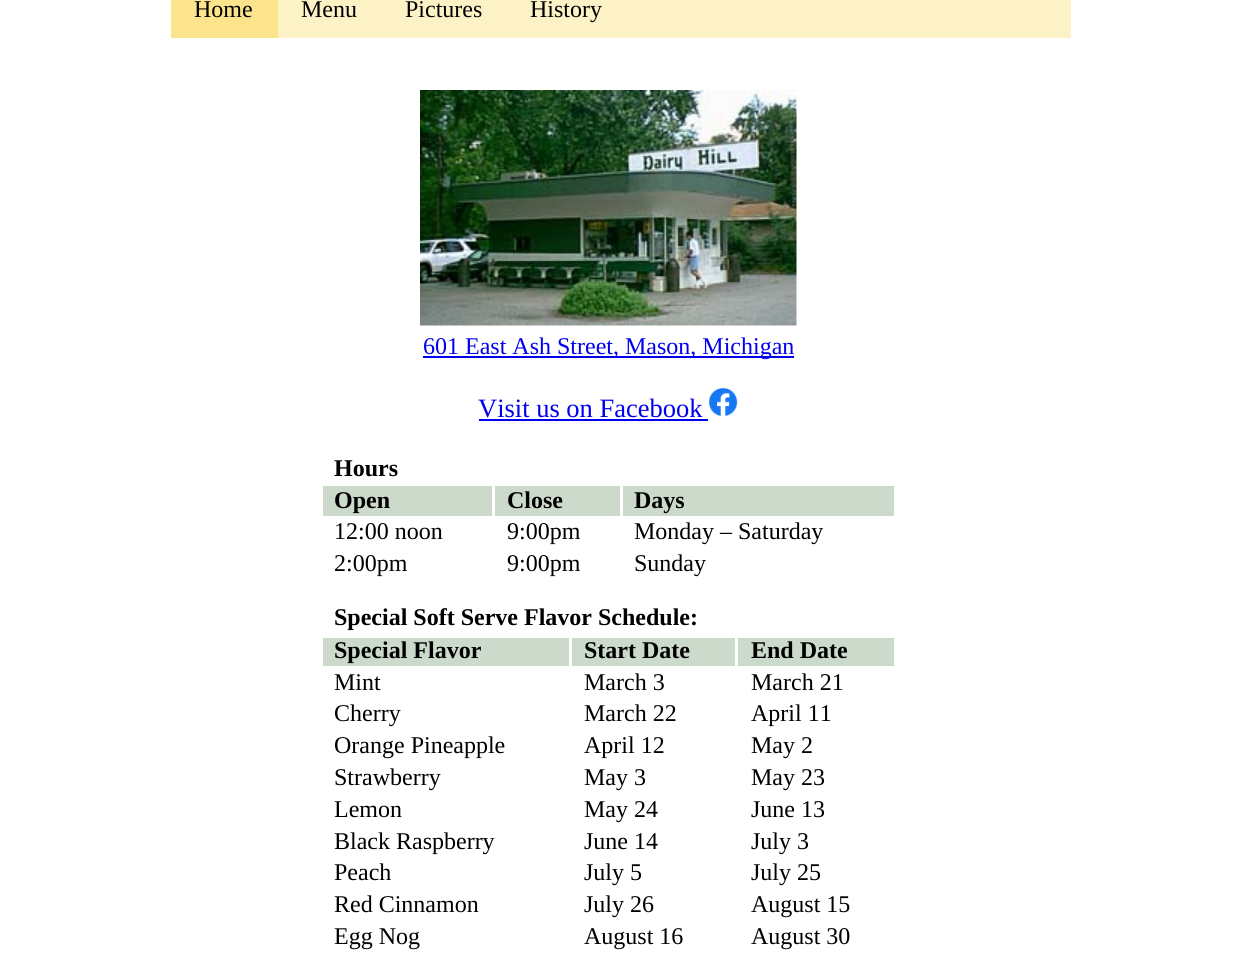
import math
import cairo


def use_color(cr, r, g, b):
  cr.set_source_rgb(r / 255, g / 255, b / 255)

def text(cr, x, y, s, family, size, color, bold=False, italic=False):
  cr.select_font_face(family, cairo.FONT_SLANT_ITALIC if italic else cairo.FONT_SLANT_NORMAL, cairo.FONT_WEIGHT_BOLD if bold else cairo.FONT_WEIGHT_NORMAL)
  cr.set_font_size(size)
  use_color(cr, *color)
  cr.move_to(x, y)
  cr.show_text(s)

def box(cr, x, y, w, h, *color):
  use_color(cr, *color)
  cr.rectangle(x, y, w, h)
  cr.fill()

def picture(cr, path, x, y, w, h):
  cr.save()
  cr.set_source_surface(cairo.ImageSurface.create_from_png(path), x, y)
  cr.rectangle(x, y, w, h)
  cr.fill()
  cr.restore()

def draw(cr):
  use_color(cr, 255, 255, 255)
  cr.paint()
  box(cr, 278, 0, 793, 38, 253, 242, 198)
  box(cr, 171, 0, 107, 38, 251, 228, 140)
  picture(cr, "img_01.png", 420, 90, 377, 236)
  box(cr, 423, 356, 371, 2, 0, 0, 238)
  box(cr, 479, 419, 229, 2, 0, 0, 238)
  picture(cr, "img_02.png", 709, 388, 29, 29)
  box(cr, 323, 486, 169, 30, 204, 218, 204)
  box(cr, 495, 486, 125, 30, 204, 218, 204)
  box(cr, 623, 486, 271, 30, 204, 218, 204)
  box(cr, 323, 638, 246, 28, 204, 218, 204)
  box(cr, 572, 638, 163, 28, 204, 218, 204)
  box(cr, 738, 638, 156, 28, 204, 218, 204)
  text(cr, 194, 17, "Home", "Liberation Serif", 24, (0, 0, 0))
  text(cr, 301, 17, "Menu", "Liberation Serif", 24, (0, 0, 0))
  text(cr, 405, 17, "Pictures", "Liberation Serif", 24, (0, 0, 0))
  text(cr, 530, 17, "History", "Liberation Serif", 24, (0, 0, 0))
  text(cr, 423, 354, "601 East Ash Street, Mason, Michigan", "Liberation Serif", 24, (0, 0, 238))
  text(cr, 478, 417, "Visit us on Facebook", "Liberation Serif", 26.5, (0, 0, 238))
  text(cr, 334, 476, "Hours", "Liberation Serif", 24, (0, 0, 0), bold=True)
  text(cr, 334, 508, "Open", "Liberation Serif", 24, (0, 0, 0), bold=True)
  text(cr, 507, 508, "Close", "Liberation Serif", 24, (0, 0, 0), bold=True)
  text(cr, 634, 508, "Days", "Liberation Serif", 24, (0, 0, 0), bold=True)
  text(cr, 334, 539, "12:00 noon", "Liberation Serif", 24, (0, 0, 0))
  text(cr, 507, 539, "9:00pm", "Liberation Serif", 24, (0, 0, 0))
  text(cr, 634, 539, "Monday – Saturday", "Liberation Serif", 24, (0, 0, 0))
  text(cr, 334, 571, "2:00pm", "Liberation Serif", 24, (0, 0, 0))
  text(cr, 507, 571, "9:00pm", "Liberation Serif", 24, (0, 0, 0))
  text(cr, 634, 571, "Sunday", "Liberation Serif", 24, (0, 0, 0))
  text(cr, 334, 625, "Special Soft Serve Flavor Schedule:", "Liberation Serif", 24, (0, 0, 0), bold=True)
  text(cr, 334, 658, "Special Flavor", "Liberation Serif", 24, (0, 0, 0), bold=True)
  text(cr, 584, 658, "Start Date", "Liberation Serif", 24, (0, 0, 0), bold=True)
  text(cr, 751, 658, "End Date", "Liberation Serif", 24, (0, 0, 0), bold=True)
  text(cr, 334, 690, "Mint", "Liberation Serif", 24, (0, 0, 0))
  text(cr, 584, 690, "March 3", "Liberation Serif", 24, (0, 0, 0))
  text(cr, 751, 690, "March 21", "Liberation Serif", 24, (0, 0, 0))
  text(cr, 334, 721, "Cherry", "Liberation Serif", 24, (0, 0, 0))
  text(cr, 584, 721, "March 22", "Liberation Serif", 24, (0, 0, 0))
  text(cr, 751, 721, "April 11", "Liberation Serif", 24, (0, 0, 0))
  text(cr, 334, 753, "Orange Pineapple", "Liberation Serif", 24, (0, 0, 0))
  text(cr, 584, 753, "April 12", "Liberation Serif", 24, (0, 0, 0))
  text(cr, 751, 753, "May 2", "Liberation Serif", 24, (0, 0, 0))
  text(cr, 334, 785, "Strawberry", "Liberation Serif", 24, (0, 0, 0))
  text(cr, 584, 785, "May 3", "Liberation Serif", 24, (0, 0, 0))
  text(cr, 751, 785, "May 23", "Liberation Serif", 24, (0, 0, 0))
  text(cr, 334, 817, "Lemon", "Liberation Serif", 24, (0, 0, 0))
  text(cr, 584, 817, "May 24", "Liberation Serif", 24, (0, 0, 0))
  text(cr, 751, 817, "June 13", "Liberation Serif", 24, (0, 0, 0))
  text(cr, 334, 849, "Black Raspberry", "Liberation Serif", 24, (0, 0, 0))
  text(cr, 584, 849, "June 14", "Liberation Serif", 24, (0, 0, 0))
  text(cr, 751, 849, "July 3", "Liberation Serif", 24, (0, 0, 0))
  text(cr, 334, 880, "Peach", "Liberation Serif", 24, (0, 0, 0))
  text(cr, 584, 880, "July 5", "Liberation Serif", 24, (0, 0, 0))
  text(cr, 751, 880, "July 25", "Liberation Serif", 24, (0, 0, 0))
  text(cr, 334, 912, "Red Cinnamon", "Liberation Serif", 24, (0, 0, 0))
  text(cr, 584, 912, "July 26", "Liberation Serif", 24, (0, 0, 0))
  text(cr, 751, 912, "August 15", "Liberation Serif", 24, (0, 0, 0))
  text(cr, 334, 944, "Egg Nog", "Liberation Serif", 24, (0, 0, 0))
  text(cr, 584, 944, "August 16", "Liberation Serif", 24, (0, 0, 0))
  text(cr, 751, 944, "August 30", "Liberation Serif", 24, (0, 0, 0))


surface = cairo.ImageSurface(cairo.FORMAT_RGB24, 1240, 953)
cr = cairo.Context(surface)
options = cairo.FontOptions()
options.set_hint_metrics(cairo.HINT_METRICS_OFF)
options.set_hint_style(cairo.HINT_STYLE_NONE)
cr.set_font_options(options)
cr.set_miter_limit(4)
draw(cr)
surface.write_to_png("out.png")
